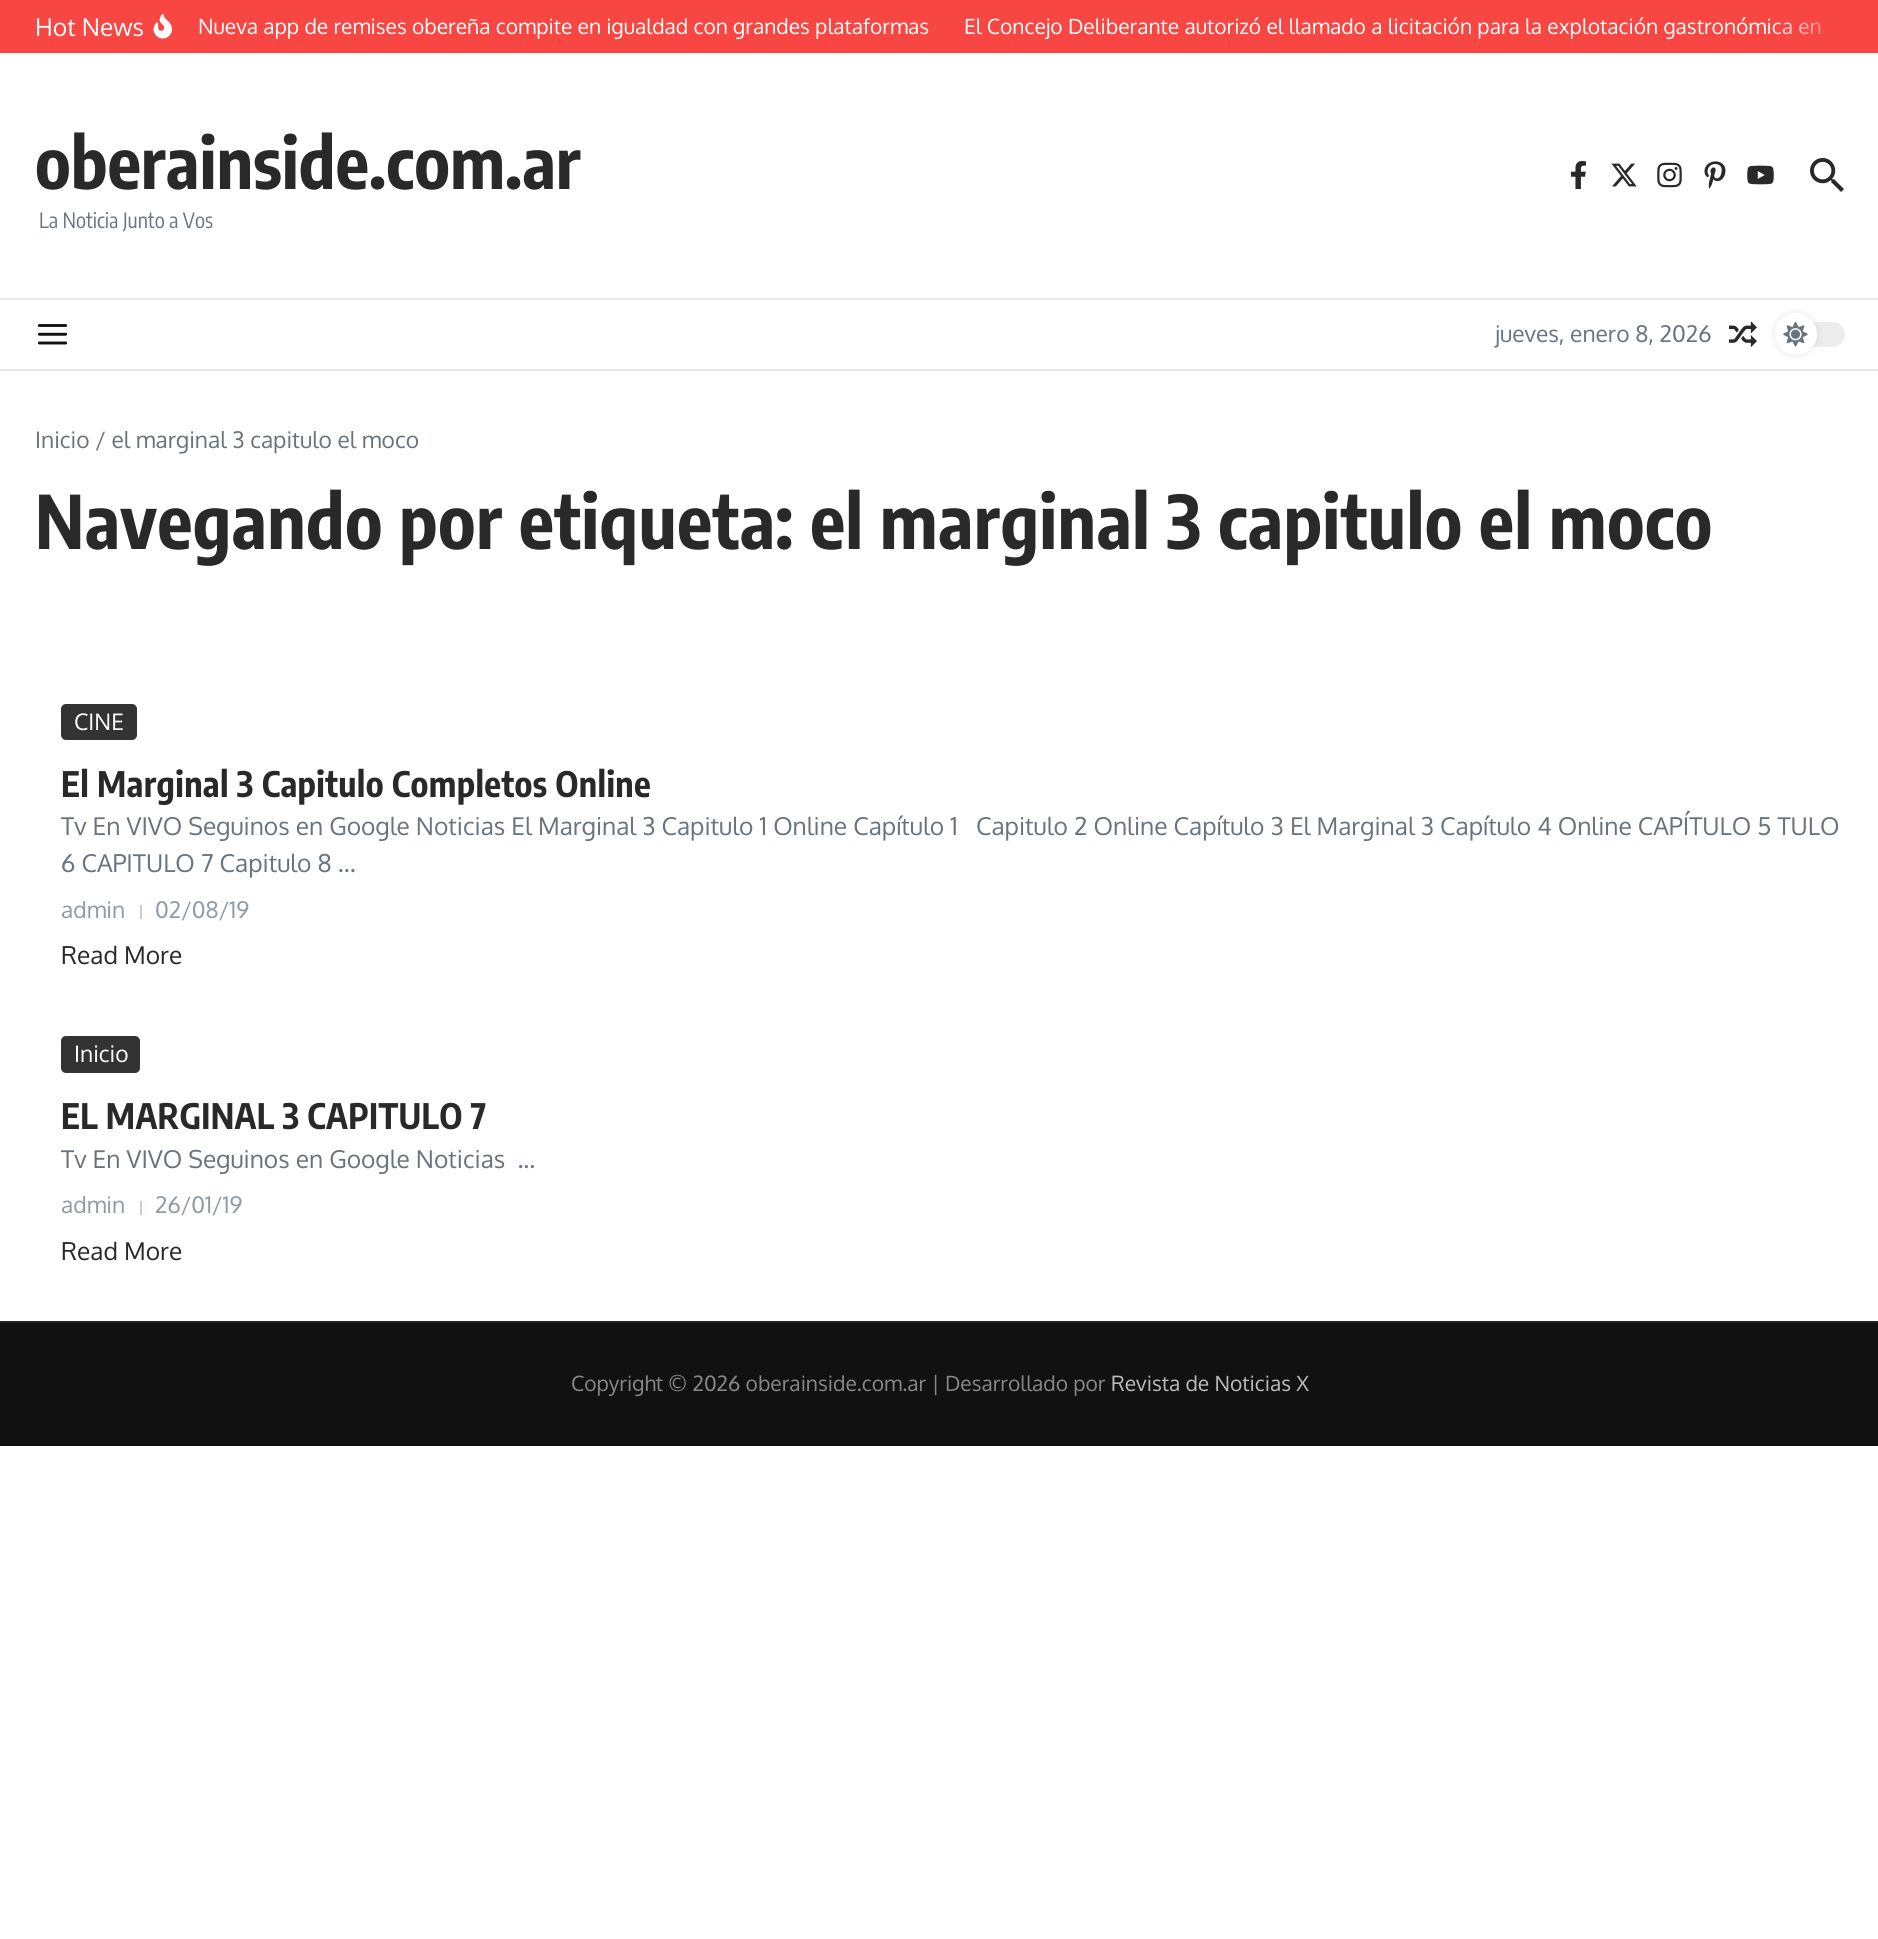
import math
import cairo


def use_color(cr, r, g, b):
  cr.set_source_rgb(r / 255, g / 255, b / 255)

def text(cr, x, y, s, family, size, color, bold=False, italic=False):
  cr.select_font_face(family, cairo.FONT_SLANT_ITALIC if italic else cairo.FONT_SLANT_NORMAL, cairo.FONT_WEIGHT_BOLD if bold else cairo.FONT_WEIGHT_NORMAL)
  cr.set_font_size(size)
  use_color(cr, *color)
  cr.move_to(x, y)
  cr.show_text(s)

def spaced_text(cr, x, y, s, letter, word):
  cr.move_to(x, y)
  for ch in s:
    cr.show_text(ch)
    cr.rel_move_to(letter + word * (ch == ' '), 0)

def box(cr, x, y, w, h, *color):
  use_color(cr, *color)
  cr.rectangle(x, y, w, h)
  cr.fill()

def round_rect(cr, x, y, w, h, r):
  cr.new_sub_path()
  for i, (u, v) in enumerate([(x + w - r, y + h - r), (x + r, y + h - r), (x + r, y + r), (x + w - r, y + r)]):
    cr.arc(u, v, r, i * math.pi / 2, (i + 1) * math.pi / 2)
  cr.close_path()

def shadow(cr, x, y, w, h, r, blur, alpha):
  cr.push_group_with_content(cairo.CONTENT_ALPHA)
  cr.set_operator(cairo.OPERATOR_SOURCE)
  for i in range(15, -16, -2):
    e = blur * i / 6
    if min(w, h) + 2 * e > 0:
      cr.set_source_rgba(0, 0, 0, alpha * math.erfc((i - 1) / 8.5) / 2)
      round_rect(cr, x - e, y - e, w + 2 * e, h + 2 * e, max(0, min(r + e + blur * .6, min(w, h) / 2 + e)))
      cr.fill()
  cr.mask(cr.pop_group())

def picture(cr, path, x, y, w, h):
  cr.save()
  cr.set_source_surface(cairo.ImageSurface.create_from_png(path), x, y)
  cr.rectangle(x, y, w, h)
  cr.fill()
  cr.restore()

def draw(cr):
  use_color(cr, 255, 255, 255)
  cr.paint()
  box(cr, 0, 0, 1878, 53, 248, 70, 67)
  picture(cr, "img_01.png", 153, 14, 19, 25)
  box(cr, 0, 298, 1878, 2, 232, 232, 232)
  picture(cr, "img_02.png", 1571, 161, 15, 28)
  picture(cr, "img_03.png", 1611, 163, 26, 24)
  picture(cr, "img_04.png", 1657, 162, 25, 26)
  picture(cr, "img_05.png", 1704, 161, 22, 28)
  picture(cr, "img_06.png", 1747, 165, 27, 20)
  picture(cr, "img_07.png", 1810, 158, 34, 34)
  box(cr, 0, 369, 1878, 2, 232, 232, 232)
  picture(cr, "img_08.png", 37, 324, 31, 21)
  picture(cr, "img_09.png", 1729, 321, 28, 27)
  use_color(cr, 237, 237, 237)
  round_rect(cr, 1775, 322, 70, 25, 12.5)
  cr.fill()
  use_color(cr, 0, 0, 0)
  shadow(cr, 1775, 313, 42, 42, 21, 3.5, 0.1)
  use_color(cr, 255, 255, 255)
  cr.arc(1796, 334, 21, 0, 2 * math.pi)
  cr.fill()
  picture(cr, "img_10.png", 1783, 322, 25, 25)
  use_color(cr, 51, 51, 51)
  round_rect(cr, 61, 704, 76, 36, 5)
  cr.fill()
  box(cr, 140, 905, 2, 14, 199, 205, 211)
  use_color(cr, 51, 51, 51)
  round_rect(cr, 61, 1036, 79, 37, 5)
  cr.fill()
  box(cr, 140, 1201, 2, 14, 199, 205, 211)
  box(cr, 0, 1323, 1878, 123, 17, 17, 17)
  box(cr, 0, 1321, 1878, 2, 34, 34, 34)
  text(cr, 35, 36, "Hot News", "Oxygen", 24.5, (255, 255, 255))
  text(cr, 198, 34, "Nueva app de remises obereña compite en igualdad con grandes plataformas", "Oxygen", 21, (255, 255, 255))
  text(cr, 964, 34, "El Concejo Deliberante autorizó el llamado a licitación para la explotación gastronómica en", "Oxygen", 21, (255, 255, 255))
  gradient = cairo.LinearGradient(1768, 27, 1855, 27)
  gradient.add_color_stop_rgba(0, 0.973, 0.275, 0.263, 0)
  gradient.add_color_stop_rgba(1, 0.973, 0.275, 0.263, 1)
  cr.set_source(gradient)
  cr.rectangle(1773, 22, 48, 13)
  cr.fill()
  text(cr, 35, 189, "oberainside.com.ar", "Encode Sans Condensed", 70, (41, 41, 41), bold=True)
  text(cr, 39, 228, "La Noticia Junto a Vos", "Encode Sans Condensed", 21, (103, 115, 126))
  text(cr, 1495, 342, "jueves, enero 8, 2026", "Oxygen", 22.75, (103, 115, 126))
  text(cr, 35, 448, "Inicio / el marginal 3 capitulo el moco", "Oxygen", 22.75, (103, 115, 126))
  cr.select_font_face("Encode Sans Condensed", cairo.FONT_SLANT_NORMAL, cairo.FONT_WEIGHT_BOLD)
  cr.set_font_size(73.5)
  use_color(cr, 41, 41, 41)
  spaced_text(cr, 35, 549, "Navegando por etiqueta: el marginal 3 capitulo el moco", 0.35, 0)
  text(cr, 74, 730, "CINE", "Oxygen", 22.75, (255, 255, 255))
  cr.select_font_face("Encode Sans Condensed", cairo.FONT_SLANT_NORMAL, cairo.FONT_WEIGHT_BOLD)
  cr.set_font_size(35)
  use_color(cr, 41, 41, 41)
  spaced_text(cr, 61, 797, "El Marginal 3 Capitulo Completos Online", 0.35, 0)
  text(cr, 61, 835, "Tv En VIVO Seguinos en Google Noticias El Marginal 3 Capitulo 1 Online Capítulo 1   Capitulo 2 Online Capítulo 3 El Marginal 3 Capítulo 4 Online CAPÍTULO 5 TULO", "Oxygen", 24.5, (103, 115, 126))
  text(cr, 61, 872, "6 CAPITULO 7 Capitulo 8 ...", "Oxygen", 24.5, (103, 115, 126))
  text(cr, 61, 918, "admin", "Oxygen", 22.75, (142, 155, 167))
  text(cr, 155, 918, "02/08/19", "Oxygen", 22.75, (142, 155, 167))
  text(cr, 61, 964, "Read More", "Oxygen", 24.5, (41, 41, 41))
  text(cr, 74, 1062, "Inicio", "Oxygen", 22.75, (255, 255, 255))
  cr.select_font_face("Encode Sans Condensed", cairo.FONT_SLANT_NORMAL, cairo.FONT_WEIGHT_BOLD)
  cr.set_font_size(35)
  use_color(cr, 41, 41, 41)
  spaced_text(cr, 61, 1129, "EL MARGINAL 3 CAPITULO 7", 0.35, 0)
  text(cr, 61, 1168, "Tv En VIVO Seguinos en Google Noticias  ...", "Oxygen", 24.5, (103, 115, 126))
  text(cr, 61, 1213, "admin", "Oxygen", 22.75, (142, 155, 167))
  text(cr, 155, 1213, "26/01/19", "Oxygen", 22.75, (142, 155, 167))
  text(cr, 61, 1260, "Read More", "Oxygen", 24.5, (41, 41, 41))
  text(cr, 571, 1391, "Copyright © 2026 oberainside.com.ar | Desarrollado por", "Oxygen", 21, (136, 136, 136))
  text(cr, 1111, 1391, "Revista de Noticias X", "Oxygen", 21, (188, 188, 188))


surface = cairo.ImageSurface(cairo.FORMAT_RGB24, 1878, 1939)
cr = cairo.Context(surface)
options = cairo.FontOptions()
options.set_hint_metrics(cairo.HINT_METRICS_OFF)
options.set_hint_style(cairo.HINT_STYLE_NONE)
cr.set_font_options(options)
cr.set_miter_limit(4)
draw(cr)
surface.write_to_png("out.png")
